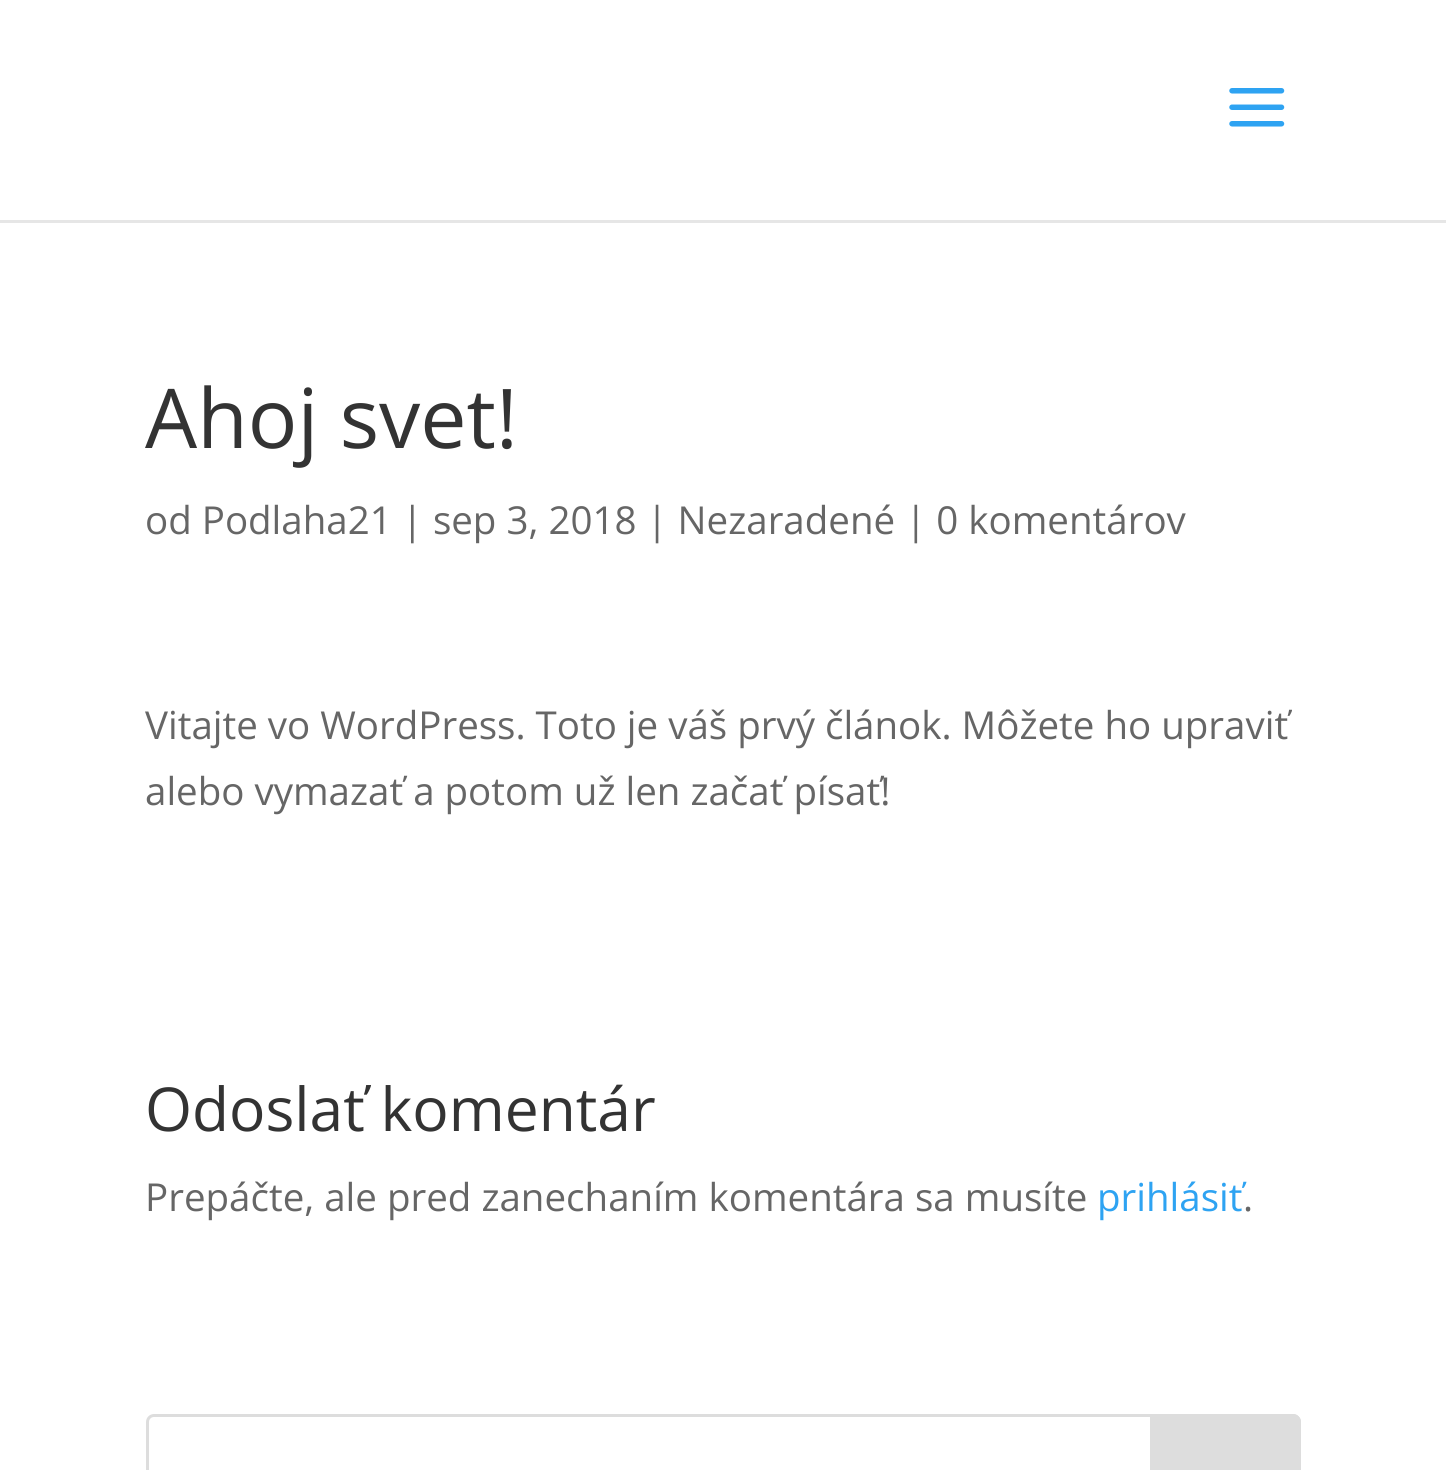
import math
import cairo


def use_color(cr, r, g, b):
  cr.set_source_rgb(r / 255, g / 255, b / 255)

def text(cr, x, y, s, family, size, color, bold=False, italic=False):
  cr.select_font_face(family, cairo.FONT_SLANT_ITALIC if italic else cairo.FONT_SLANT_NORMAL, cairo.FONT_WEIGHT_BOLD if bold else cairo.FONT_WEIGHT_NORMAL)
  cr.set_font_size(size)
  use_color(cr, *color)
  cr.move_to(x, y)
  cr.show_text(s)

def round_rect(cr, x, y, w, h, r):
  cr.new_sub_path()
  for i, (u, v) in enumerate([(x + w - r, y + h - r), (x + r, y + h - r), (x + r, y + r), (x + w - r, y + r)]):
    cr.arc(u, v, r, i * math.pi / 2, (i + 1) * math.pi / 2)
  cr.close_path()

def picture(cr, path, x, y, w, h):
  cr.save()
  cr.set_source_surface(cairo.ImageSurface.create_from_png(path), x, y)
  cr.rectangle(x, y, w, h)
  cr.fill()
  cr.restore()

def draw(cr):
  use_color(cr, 255, 255, 255)
  cr.paint()
  use_color(cr, 230, 230, 230)
  cr.new_path()
  cr.move_to(0, 220)
  cr.line_to(0, 223)
  cr.line_to(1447, 223)
  cr.line_to(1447, 3)
  cr.line_to(1446, 3)
  cr.line_to(1446, 220)
  cr.close_path()
  cr.fill()
  picture(cr, "img_01.png", 1229, 88, 56, 39)
  round_rect(cr, 147.5, 1415.5, 1152, 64, 6.5)
  use_color(cr, 221, 221, 221)
  cr.set_line_width(3)
  cr.stroke()
  cr.new_path()
  cr.move_to(1151.5, 1415.5)
  cr.line_to(1293, 1415.5)
  cr.curve_to(1296.5, 1415.5, 1299.5, 1418.5, 1299.5, 1422)
  cr.line_to(1299.5, 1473)
  cr.curve_to(1299.5, 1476.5, 1296.5, 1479.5, 1293, 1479.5)
  cr.line_to(1151.5, 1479.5)
  cr.close_path()
  cr.fill_preserve()
  cr.stroke()
  text(cr, 145, 448, "Ahoj svet!", "Open Sans", 82.5, (51, 51, 51))
  text(cr, 145, 534, "od Podlaha21 | sep 3, 2018 | Nezaradené | 0 komentárov", "Open Sans", 38.5, (102, 102, 102))
  text(cr, 145, 739, "Vitajte vo WordPress. Toto je váš prvý článok. Môžete ho upraviť", "Open Sans", 38.5, (102, 102, 102))
  text(cr, 145, 805, "alebo vymazať a potom už len začať písať!", "Open Sans", 38.5, (102, 102, 102))
  text(cr, 145, 1131, "Odoslať komentár", "Open Sans", 60.5, (51, 51, 51))
  text(cr, 145, 1211, "Prepáčte, ale pred zanechaním komentára sa musíte", "Open Sans", 38.5, (102, 102, 102))
  text(cr, 1097, 1211, "prihlásiť", "Open Sans", 38.5, (46, 163, 242))
  text(cr, 1243, 1211, ".", "Open Sans", 38.5, (102, 102, 102))


surface = cairo.ImageSurface(cairo.FORMAT_RGB24, 1446, 1470)
cr = cairo.Context(surface)
options = cairo.FontOptions()
options.set_hint_metrics(cairo.HINT_METRICS_OFF)
options.set_hint_style(cairo.HINT_STYLE_NONE)
cr.set_font_options(options)
cr.set_miter_limit(4)
draw(cr)
surface.write_to_png("out.png")
